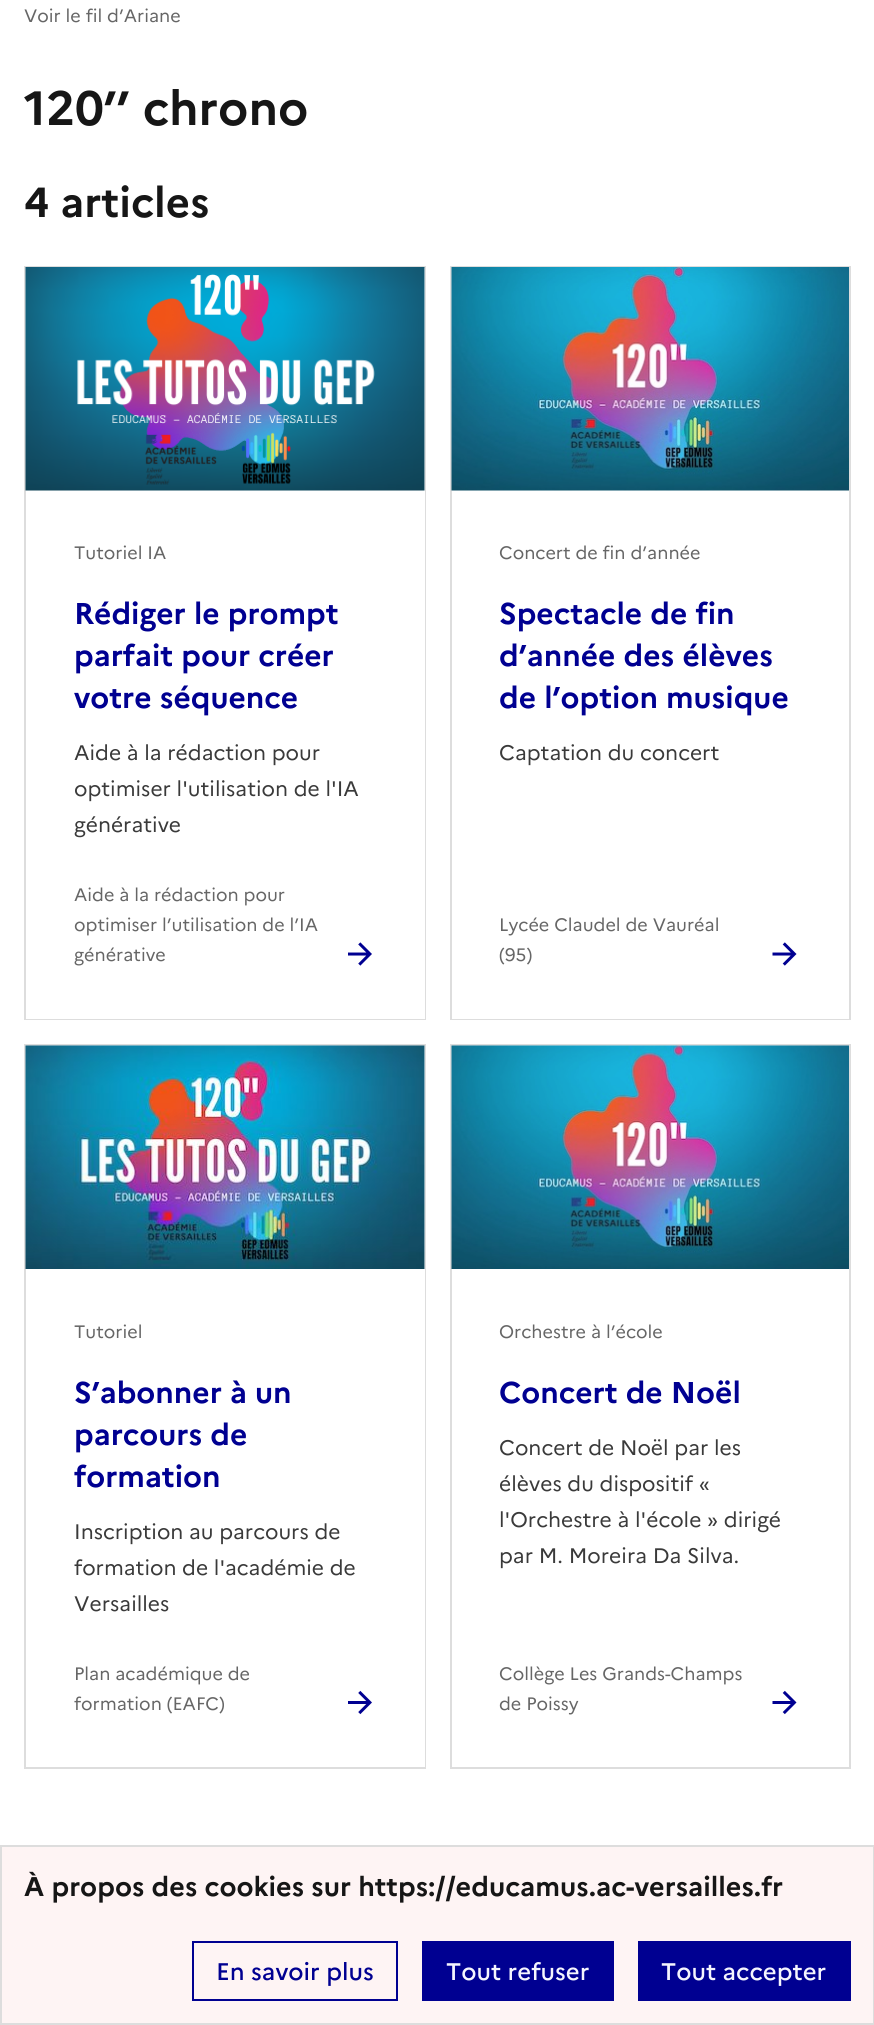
import math
import cairo


def use_color(cr, r, g, b):
  cr.set_source_rgb(r / 255, g / 255, b / 255)

def text(cr, x, y, s, family, size, color, bold=False, italic=False):
  cr.select_font_face(family, cairo.FONT_SLANT_ITALIC if italic else cairo.FONT_SLANT_NORMAL, cairo.FONT_WEIGHT_BOLD if bold else cairo.FONT_WEIGHT_NORMAL)
  cr.set_font_size(size)
  use_color(cr, *color)
  cr.move_to(x, y)
  cr.show_text(s)

def box(cr, x, y, w, h, *color):
  use_color(cr, *color)
  cr.rectangle(x, y, w, h)
  cr.fill()

def picture(cr, path, x, y, w, h):
  cr.save()
  cr.set_source_surface(cairo.ImageSurface.create_from_png(path), x, y)
  cr.rectangle(x, y, w, h)
  cr.fill()
  cr.restore()

def draw(cr):
  use_color(cr, 255, 255, 255)
  cr.paint()
  box(cr, 24, 266, 402, 2, 221, 221, 221)
  box(cr, 425, 266, 1, 754, 221, 221, 221)
  box(cr, 24, 266, 2, 754, 221, 221, 221)
  box(cr, 24, 1019, 402, 1, 221, 221, 221)
  picture(cr, "img_01.png", 25, 267, 400, 224)
  picture(cr, "img_02.png", 348, 942, 24, 24)
  box(cr, 450, 266, 401, 1, 221, 221, 221)
  box(cr, 849, 266, 2, 754, 221, 221, 221)
  box(cr, 450, 266, 2, 754, 221, 221, 221)
  box(cr, 450, 1019, 401, 1, 221, 221, 221)
  picture(cr, "img_03.png", 451, 267, 398, 224)
  picture(cr, "img_04.png", 772, 942, 25, 24)
  box(cr, 24, 1044, 402, 2, 221, 221, 221)
  box(cr, 425, 1044, 1, 725, 221, 221, 221)
  box(cr, 24, 1044, 2, 725, 221, 221, 221)
  box(cr, 24, 1767, 402, 2, 221, 221, 221)
  picture(cr, "img_05.png", 25, 1045, 400, 224)
  picture(cr, "img_06.png", 348, 1690, 24, 25)
  box(cr, 450, 1044, 401, 2, 221, 221, 221)
  box(cr, 849, 1044, 2, 725, 221, 221, 221)
  box(cr, 450, 1044, 2, 725, 221, 221, 221)
  box(cr, 450, 1767, 401, 2, 221, 221, 221)
  picture(cr, "img_07.png", 451, 1045, 398, 224)
  picture(cr, "img_08.png", 772, 1690, 25, 25)
  use_color(cr, 254, 244, 244)
  cr.rectangle(1, 1846, 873, 178)
  cr.fill_preserve()
  use_color(cr, 221, 221, 221)
  cr.stroke()
  cr.rectangle(193, 1942, 204, 58)
  use_color(cr, 0, 0, 145)
  cr.stroke()
  box(cr, 422, 1941, 192, 60, 0, 0, 145)
  box(cr, 638, 1941, 213, 60, 0, 0, 145)
  text(cr, 24, 22, "Voir le fil d’Ariane", "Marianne", 18, (102, 102, 102))
  text(cr, 24, 125, "120’’ chrono", "Marianne", 48, (22, 22, 22), bold=True)
  text(cr, 24, 217, "4 articles", "Marianne", 42, (22, 22, 22), bold=True)
  text(cr, 74, 559, "Tutoriel IA", "Marianne", 18, (102, 102, 102))
  text(cr, 74, 624, "Rédiger le prompt", "Marianne", 30, (0, 0, 145), bold=True)
  text(cr, 74, 666, "parfait pour créer", "Marianne", 30, (0, 0, 145), bold=True)
  text(cr, 74, 708, "votre séquence", "Marianne", 30, (0, 0, 145), bold=True)
  text(cr, 74, 760, "Aide à la rédaction pour", "Marianne", 21, (58, 58, 58))
  text(cr, 74, 796, "optimiser l'utilisation de l'IA", "Marianne", 21, (58, 58, 58))
  text(cr, 74, 832, "générative", "Marianne", 21, (58, 58, 58))
  text(cr, 74, 901, "Aide à la rédaction pour", "Marianne", 18, (102, 102, 102))
  text(cr, 74, 931, "optimiser l’utilisation de l’IA", "Marianne", 18, (102, 102, 102))
  text(cr, 74, 961, "générative", "Marianne", 18, (102, 102, 102))
  text(cr, 499, 559, "Concert de fin d’année", "Marianne", 18, (102, 102, 102))
  text(cr, 499, 624, "Spectacle de fin", "Marianne", 30, (0, 0, 145), bold=True)
  text(cr, 499, 666, "d’année des élèves", "Marianne", 30, (0, 0, 145), bold=True)
  text(cr, 499, 708, "de l’option musique", "Marianne", 30, (0, 0, 145), bold=True)
  text(cr, 499, 760, "Captation du concert", "Marianne", 21, (58, 58, 58))
  text(cr, 499, 931, "Lycée Claudel de Vauréal", "Marianne", 18, (102, 102, 102))
  text(cr, 499, 961, "(95)", "Marianne", 18, (102, 102, 102))
  text(cr, 74, 1338, "Tutoriel", "Marianne", 18, (102, 102, 102))
  text(cr, 74, 1403, "S’abonner à un", "Marianne", 30, (0, 0, 145), bold=True)
  text(cr, 74, 1445, "parcours de", "Marianne", 30, (0, 0, 145), bold=True)
  text(cr, 74, 1487, "formation", "Marianne", 30, (0, 0, 145), bold=True)
  text(cr, 74, 1539, "Inscription au parcours de", "Marianne", 21, (58, 58, 58))
  text(cr, 74, 1575, "formation de l'académie de", "Marianne", 21, (58, 58, 58))
  text(cr, 74, 1611, "Versailles", "Marianne", 21, (58, 58, 58))
  text(cr, 74, 1680, "Plan académique de", "Marianne", 18, (102, 102, 102))
  text(cr, 74, 1710, "formation (EAFC)", "Marianne", 18, (102, 102, 102))
  text(cr, 499, 1338, "Orchestre à l’école", "Marianne", 18, (102, 102, 102))
  text(cr, 499, 1403, "Concert de Noël", "Marianne", 30, (0, 0, 145), bold=True)
  text(cr, 499, 1455, "Concert de Noël par les", "Marianne", 21, (58, 58, 58))
  text(cr, 499, 1491, "élèves du dispositif «", "Marianne", 21, (58, 58, 58))
  text(cr, 499, 1527, "l'Orchestre à l'école » dirigé", "Marianne", 21, (58, 58, 58))
  text(cr, 499, 1563, "par M. Moreira Da Silva.", "Marianne", 21, (58, 58, 58))
  text(cr, 499, 1680, "Collège Les Grands-Champs", "Marianne", 18, (102, 102, 102))
  text(cr, 499, 1710, "de Poissy", "Marianne", 18, (102, 102, 102))
  text(cr, 24, 1896, "À propos des cookies sur https://educamus.ac-versailles.fr", "Marianne", 27, (22, 22, 22), bold=True)
  text(cr, 216, 1980, "En savoir plus", "Marianne Medium", 24, (0, 0, 145))
  text(cr, 446, 1980, "Tout refuser", "Marianne Medium", 24, (245, 245, 254))
  text(cr, 661, 1980, "Tout accepter", "Marianne Medium", 24, (245, 245, 254))


surface = cairo.ImageSurface(cairo.FORMAT_RGB24, 874, 2025)
cr = cairo.Context(surface)
options = cairo.FontOptions()
options.set_hint_metrics(cairo.HINT_METRICS_OFF)
options.set_hint_style(cairo.HINT_STYLE_NONE)
cr.set_font_options(options)
cr.set_miter_limit(4)
draw(cr)
surface.write_to_png("out.png")
